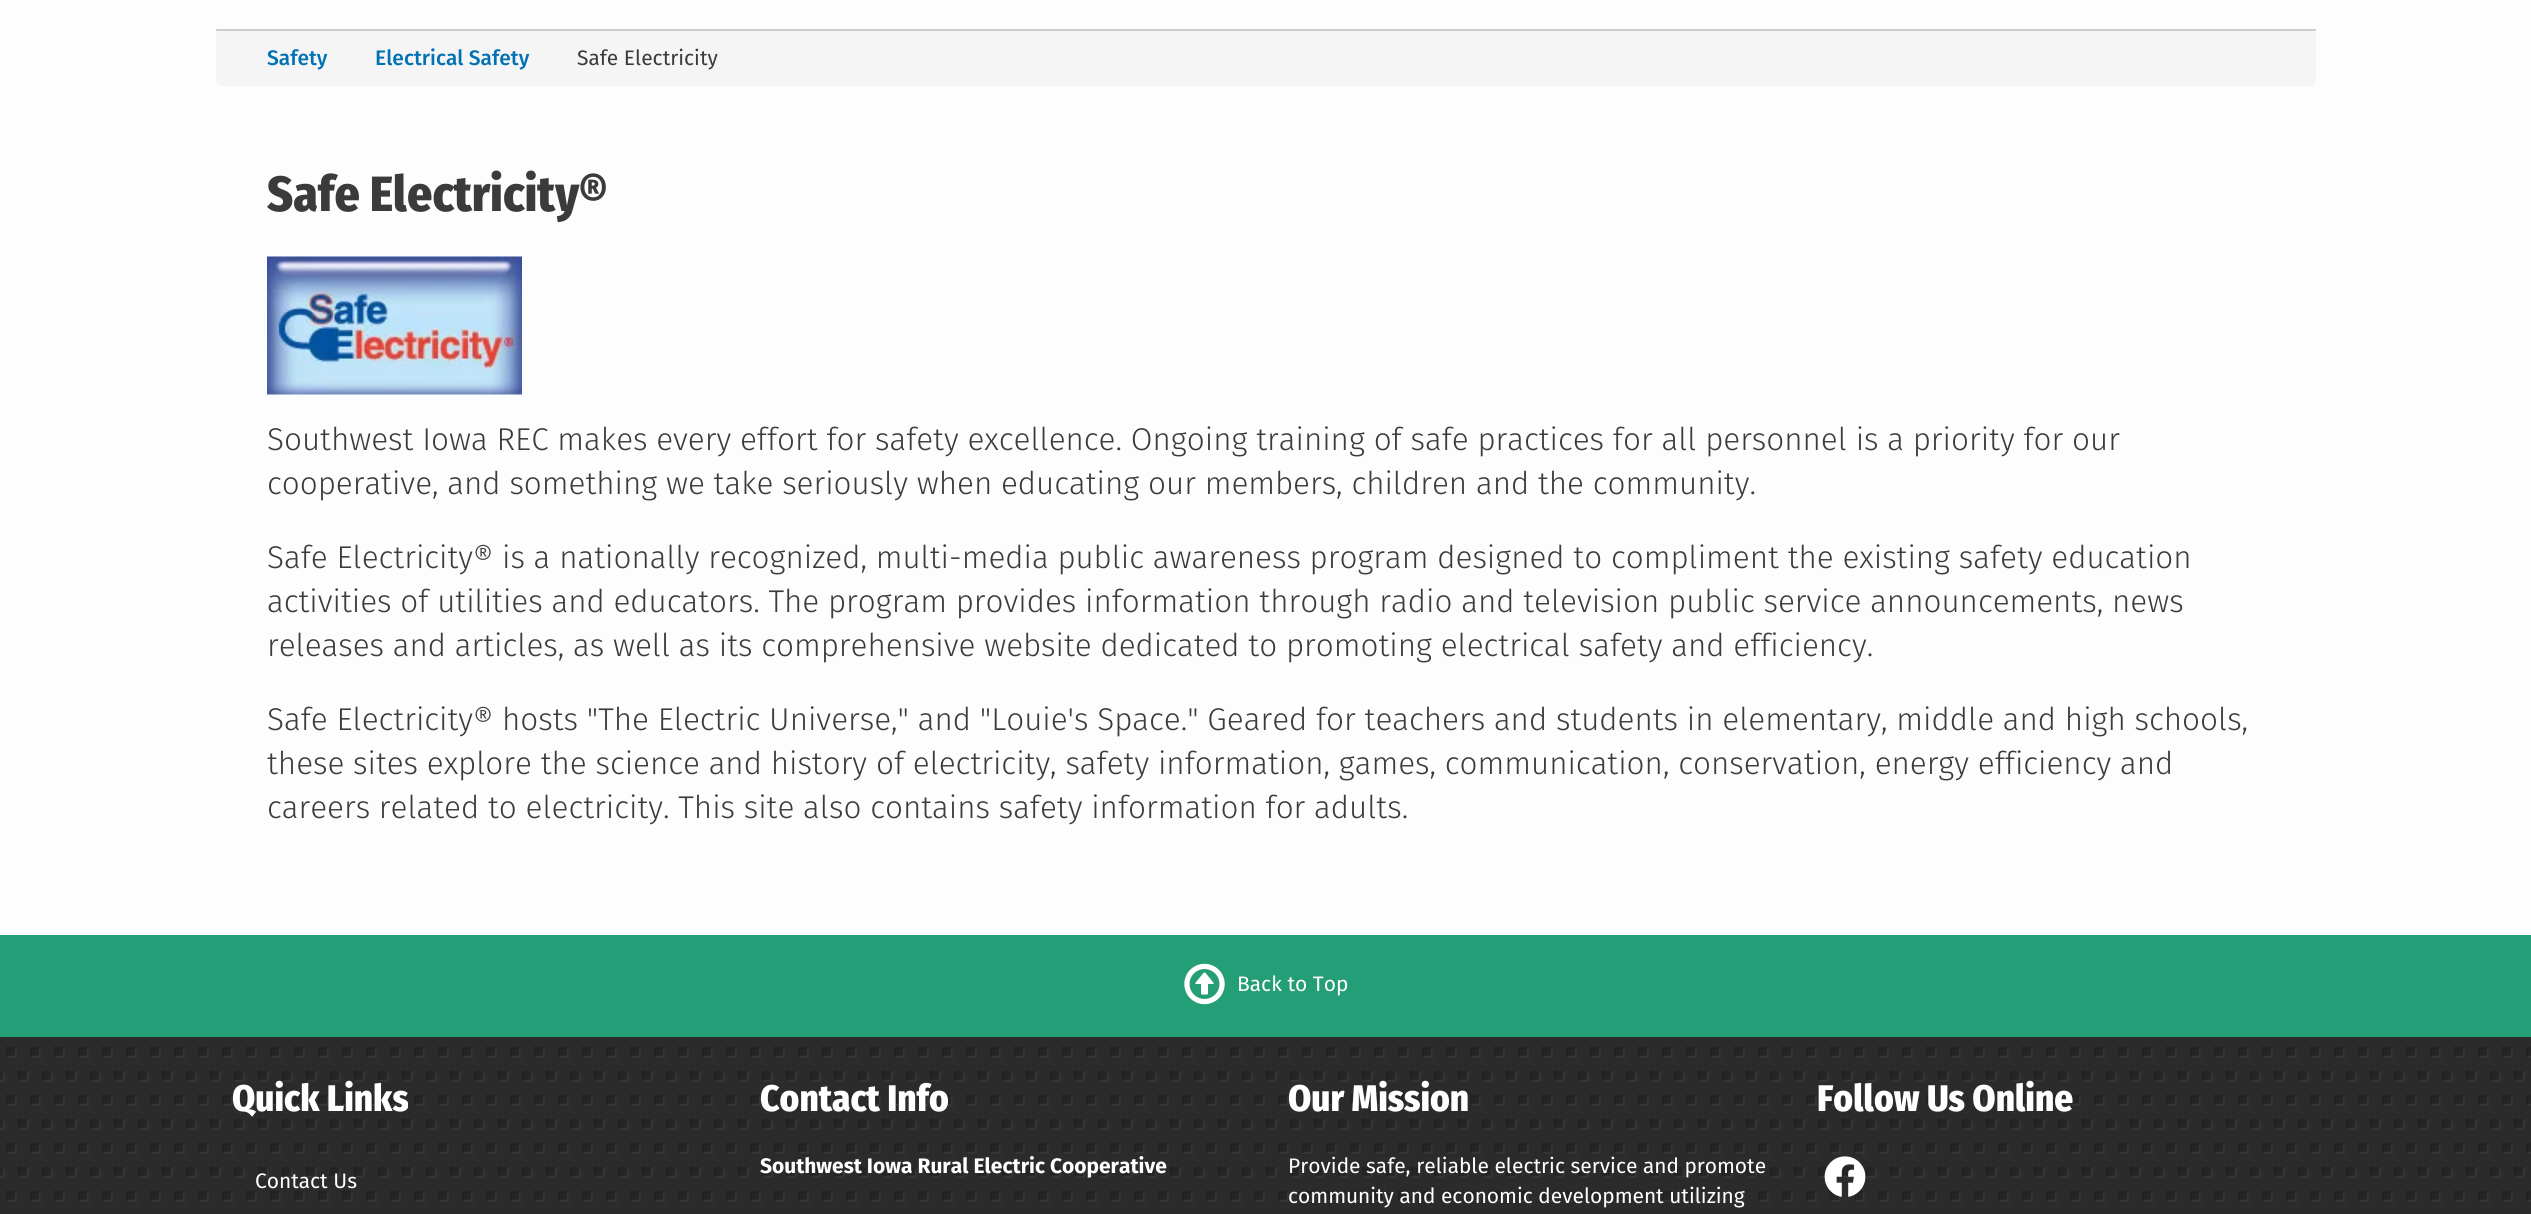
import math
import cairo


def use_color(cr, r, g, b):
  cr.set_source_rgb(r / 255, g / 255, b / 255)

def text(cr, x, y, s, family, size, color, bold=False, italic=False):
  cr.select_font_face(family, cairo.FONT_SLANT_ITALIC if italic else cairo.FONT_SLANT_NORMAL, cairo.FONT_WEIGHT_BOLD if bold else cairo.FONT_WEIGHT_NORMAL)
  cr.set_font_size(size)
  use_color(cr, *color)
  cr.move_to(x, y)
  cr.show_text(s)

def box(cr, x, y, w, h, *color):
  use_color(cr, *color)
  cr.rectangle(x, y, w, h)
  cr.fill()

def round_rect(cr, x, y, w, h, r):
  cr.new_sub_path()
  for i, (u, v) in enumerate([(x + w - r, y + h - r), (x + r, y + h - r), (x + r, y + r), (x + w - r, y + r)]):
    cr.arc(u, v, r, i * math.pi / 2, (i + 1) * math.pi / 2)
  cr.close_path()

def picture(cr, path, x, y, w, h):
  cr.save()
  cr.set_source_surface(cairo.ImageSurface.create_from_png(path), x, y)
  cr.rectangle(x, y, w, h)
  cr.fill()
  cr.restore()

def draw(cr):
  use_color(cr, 253, 253, 253)
  cr.paint()
  use_color(cr, 245, 245, 245)
  round_rect(cr, 216, 30, 2100, 56, 6)
  cr.fill()
  box(cr, 216, 29, 2100, 2, 204, 204, 204)
  picture(cr, "img_01.png", 267, 256, 255, 139)
  box(cr, 0, 935, 2531, 102, 36, 158, 119)
  picture(cr, "img_02.png", 1184, 963, 41, 42)
  picture(cr, "img_03.png", 0, 1037, 2531, 177)
  picture(cr, "img_04.png", 1824, 1156, 42, 41)
  text(cr, 267, 65, "Safety", "Fira Sans Medium", 21, (0, 113, 179))
  text(cr, 375, 65, "Electrical Safety", "Fira Sans Medium", 21, (0, 113, 179))
  text(cr, 577, 65, "Safe Electricity", "Fira Sans", 21, (59, 59, 59))
  text(cr, 267, 211, "Safe Electricity®", "Fira Sans Condensed ExtraBold", 49.5, (59, 59, 59))
  text(cr, 267, 450, "Southwest Iowa REC makes every effort for safety excellence. Ongoing training of safe practices for all personnel is a priority for our", "Fira Sans Light", 31.5, (59, 59, 59))
  text(cr, 267, 494, "cooperative, and something we take seriously when educating our members, children and the community.", "Fira Sans Light", 31.5, (59, 59, 59))
  text(cr, 267, 568, "Safe Electricity® is a nationally recognized, multi-media public awareness program designed to compliment the existing safety education", "Fira Sans Light", 31.5, (59, 59, 59))
  text(cr, 267, 612, "activities of utilities and educators. The program provides information through radio and television public service announcements, news", "Fira Sans Light", 31.5, (59, 59, 59))
  text(cr, 267, 656, "releases and articles, as well as its comprehensive website dedicated to promoting electrical safety and efficiency.", "Fira Sans Light", 31.5, (59, 59, 59))
  text(cr, 267, 730, "Safe Electricity® hosts \"The Electric Universe,\" and \"Louie's Space.\" Geared for teachers and students in elementary, middle and high schools,", "Fira Sans Light", 31.5, (59, 59, 59))
  text(cr, 267, 774, "these sites explore the science and history of electricity, safety information, games, communication, conservation, energy efficiency and", "Fira Sans Light", 31.5, (59, 59, 59))
  text(cr, 267, 818, "careers related to electricity. This site also contains safety information for adults.", "Fira Sans Light", 31.5, (59, 59, 59))
  text(cr, 1237, 991, "Back to Top", "Fira Sans", 21, (255, 255, 255))
  text(cr, 232, 1111, "Quick Links", "Fira Sans Condensed ExtraBold", 37, (255, 255, 255))
  text(cr, 255, 1188, "Contact Us", "Fira Sans", 21, (255, 255, 255))
  text(cr, 760, 1111, "Contact Info", "Fira Sans Condensed ExtraBold", 37, (255, 255, 255))
  text(cr, 760, 1173, "Southwest Iowa Rural Electric Cooperative", "Fira Sans", 21, (255, 255, 255), bold=True)
  text(cr, 1288, 1111, "Our Mission", "Fira Sans Condensed ExtraBold", 37, (255, 255, 255))
  text(cr, 1288, 1173, "Provide safe, reliable electric service and promote", "Fira Sans", 21, (255, 255, 255))
  text(cr, 1288, 1203, "community and economic development utilizing", "Fira Sans", 21, (255, 255, 255))
  text(cr, 1817, 1111, "Follow Us Online", "Fira Sans Condensed ExtraBold", 37, (255, 255, 255))


surface = cairo.ImageSurface(cairo.FORMAT_RGB24, 2531, 1214)
cr = cairo.Context(surface)
options = cairo.FontOptions()
options.set_hint_metrics(cairo.HINT_METRICS_OFF)
options.set_hint_style(cairo.HINT_STYLE_NONE)
cr.set_font_options(options)
cr.set_miter_limit(4)
draw(cr)
surface.write_to_png("out.png")
